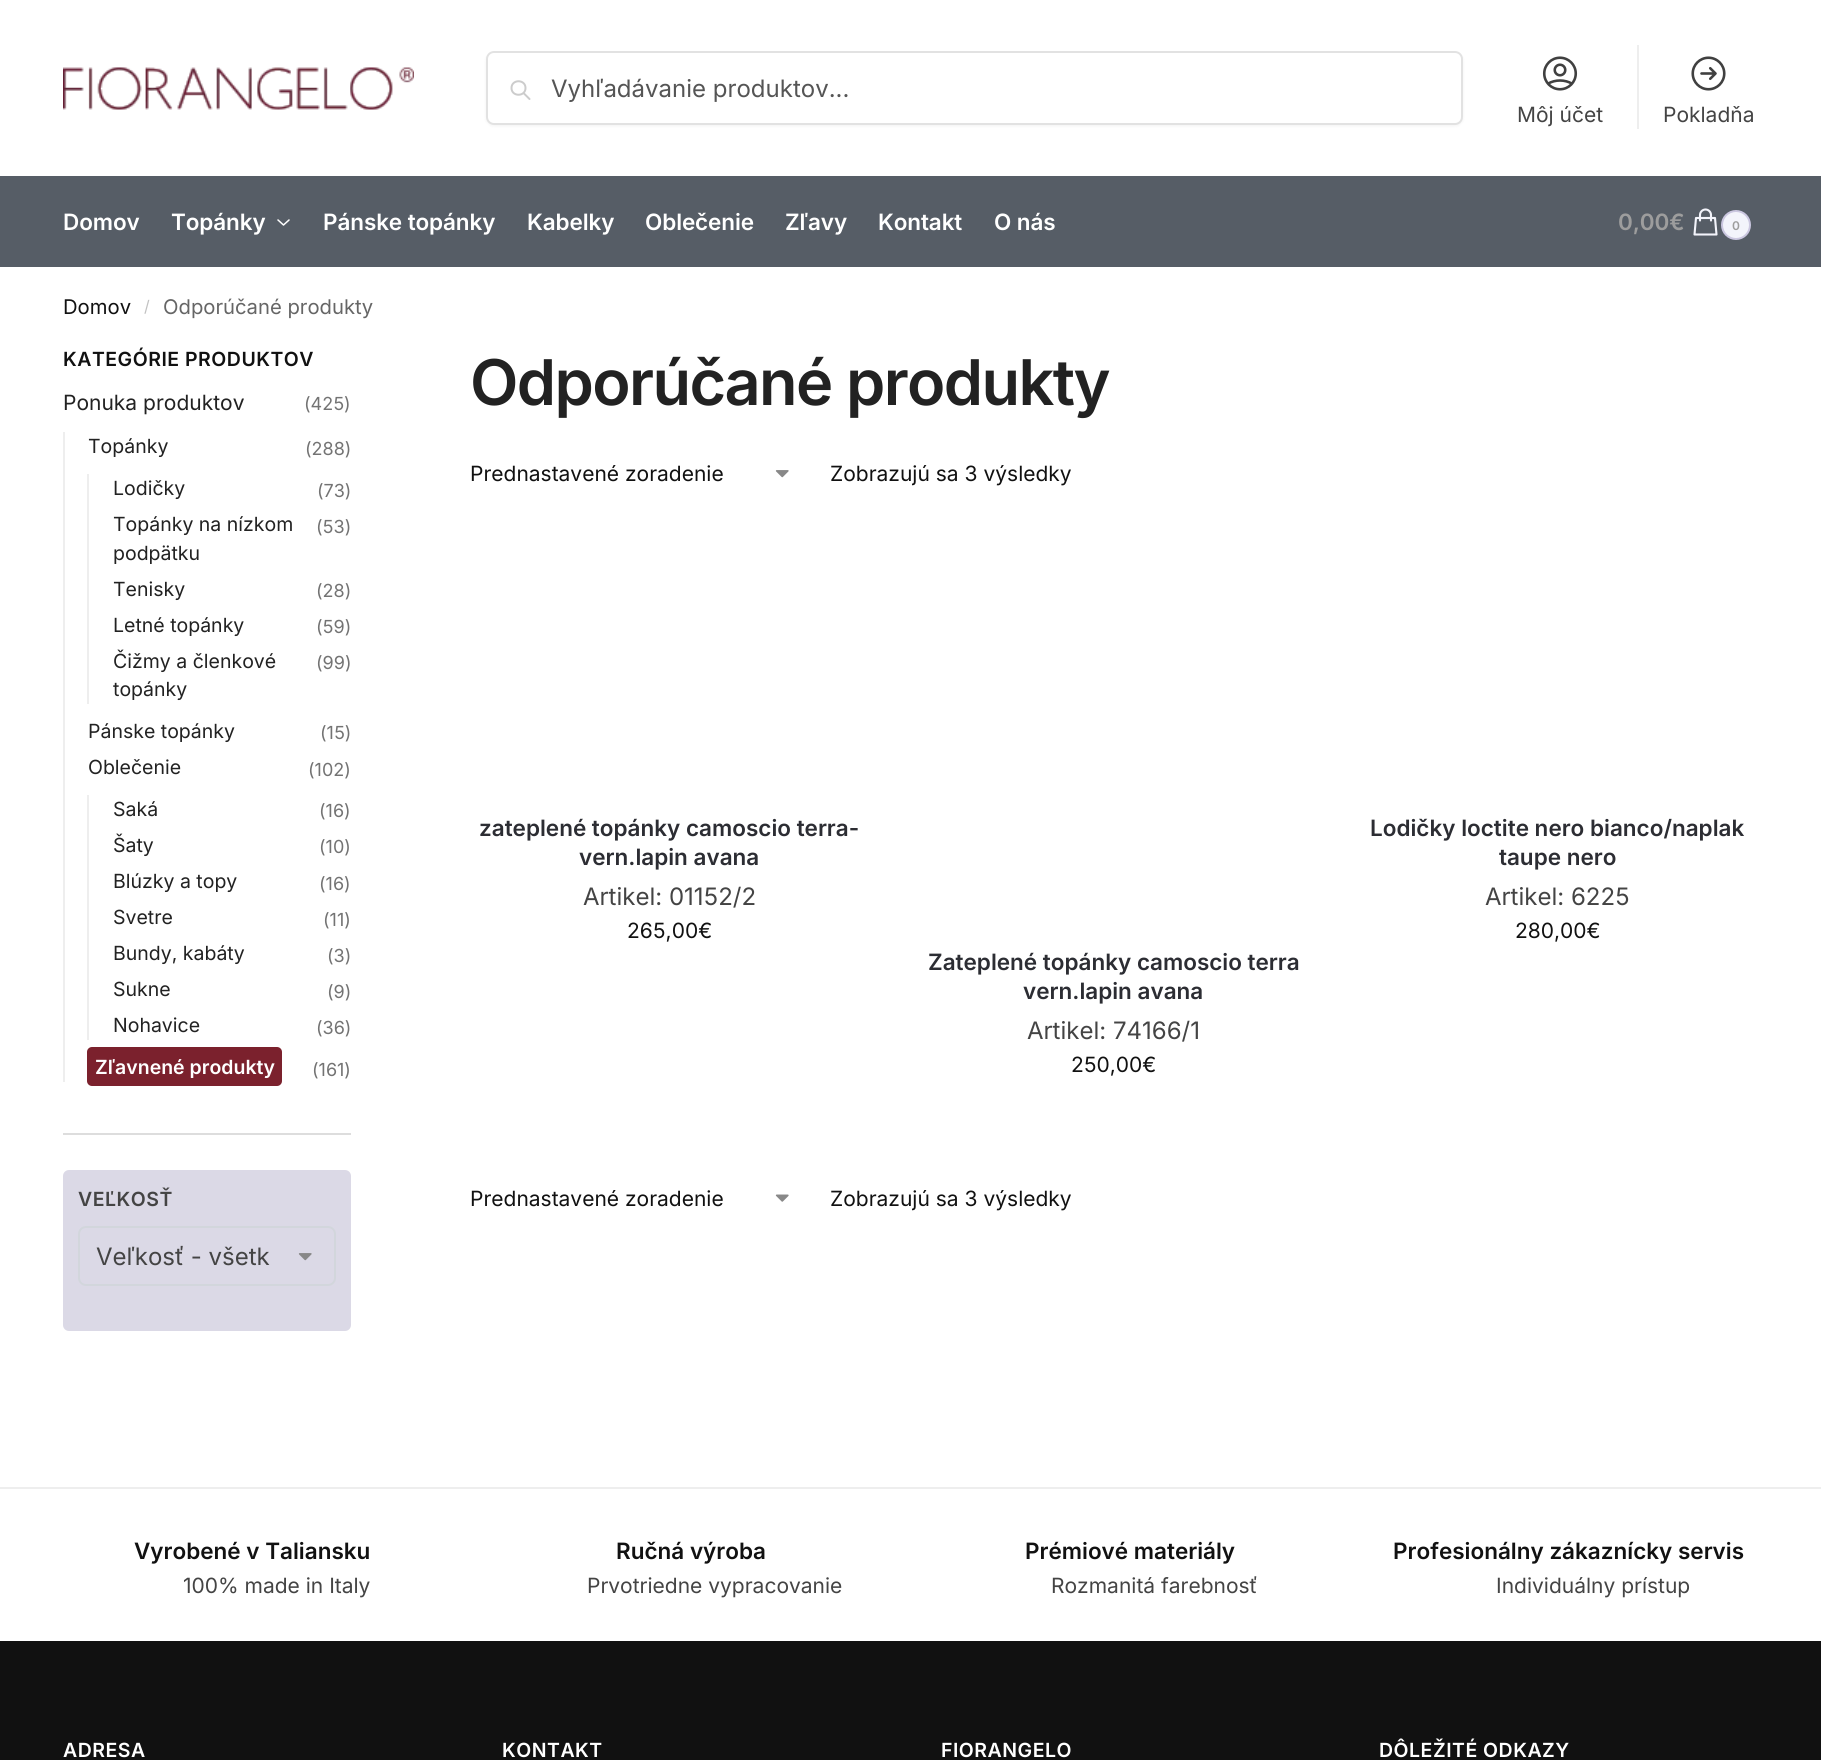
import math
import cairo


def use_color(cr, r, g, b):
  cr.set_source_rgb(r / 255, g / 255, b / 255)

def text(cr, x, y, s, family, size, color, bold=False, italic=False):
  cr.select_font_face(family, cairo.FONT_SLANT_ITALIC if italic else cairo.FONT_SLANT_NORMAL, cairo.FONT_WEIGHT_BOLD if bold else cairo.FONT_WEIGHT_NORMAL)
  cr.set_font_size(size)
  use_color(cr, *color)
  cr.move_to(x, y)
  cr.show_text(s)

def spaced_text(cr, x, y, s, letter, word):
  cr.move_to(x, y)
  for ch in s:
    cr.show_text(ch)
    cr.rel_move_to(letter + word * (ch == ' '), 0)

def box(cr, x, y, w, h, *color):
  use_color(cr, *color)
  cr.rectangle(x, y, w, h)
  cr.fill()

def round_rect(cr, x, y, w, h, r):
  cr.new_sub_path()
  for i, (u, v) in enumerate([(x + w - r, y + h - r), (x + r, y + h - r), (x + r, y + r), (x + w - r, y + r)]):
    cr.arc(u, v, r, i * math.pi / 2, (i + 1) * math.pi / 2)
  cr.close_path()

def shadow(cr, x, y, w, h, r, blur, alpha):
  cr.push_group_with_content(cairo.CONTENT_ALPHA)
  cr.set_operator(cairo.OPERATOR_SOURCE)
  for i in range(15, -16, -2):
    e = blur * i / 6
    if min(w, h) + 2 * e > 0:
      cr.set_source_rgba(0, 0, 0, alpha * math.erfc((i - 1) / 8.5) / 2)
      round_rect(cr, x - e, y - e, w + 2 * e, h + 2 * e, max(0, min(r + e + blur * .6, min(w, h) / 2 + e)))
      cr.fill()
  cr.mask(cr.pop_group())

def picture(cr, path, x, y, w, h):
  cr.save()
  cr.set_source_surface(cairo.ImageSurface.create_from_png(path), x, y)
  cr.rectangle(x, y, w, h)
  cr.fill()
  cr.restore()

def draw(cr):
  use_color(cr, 255, 255, 255)
  cr.paint()
  picture(cr, "img_01.png", 63, 67, 351, 43)
  use_color(cr, 0, 0, 0)
  shadow(cr, 486, 53, 977, 73, 8, 1.5, 0.05)
  use_color(cr, 255, 255, 255)
  round_rect(cr, 487, 52, 975, 72, 7)
  cr.fill_preserve()
  use_color(cr, 226, 226, 226)
  cr.stroke()
  cr.new_path()
  cr.move_to(529.5, 99)
  cr.line_to(523.5, 93)
  cr.move_to(525.5, 88)
  cr.curve_to(525.5, 97, 511.5, 97, 511.5, 88)
  cr.curve_to(511.5, 79, 525.5, 79, 525.5, 88)
  cr.close_path()
  use_color(cr, 204, 204, 204)
  cr.set_line_cap(cairo.LINE_CAP_ROUND)
  cr.set_line_join(cairo.LINE_JOIN_ROUND)
  cr.stroke()
  picture(cr, "img_02.png", 1542, 56, 36, 35)
  box(cr, 1637, 45, 2, 84, 238, 238, 238)
  picture(cr, "img_03.png", 1691, 56, 35, 35)
  box(cr, 0, 176, 1821, 91, 86, 93, 102)
  cr.new_path()
  cr.move_to(289, 220)
  cr.line_to(283.5, 225)
  cr.line_to(278, 220)
  use_color(cr, 255, 255, 255)
  cr.set_line_width(1.5)
  cr.stroke()
  cr.new_path()
  cr.move_to(1711, 220.5)
  cr.line_to(1711, 215)
  cr.curve_to(1711, 212, 1708.5, 209.5, 1705.5, 209.5)
  cr.curve_to(1702.5, 209.5, 1700, 212, 1700, 215)
  cr.line_to(1700, 220.5)
  cr.move_to(1696, 218)
  cr.line_to(1715, 218)
  cr.line_to(1716.5, 234.5)
  cr.line_to(1694.5, 234.5)
  cr.close_path()
  use_color(cr, 243, 244, 251)
  cr.set_line_width(2.1)
  cr.stroke()
  cr.arc(1736, 225, 14, 0, 2 * math.pi)
  cr.fill_preserve()
  use_color(cr, 203, 199, 224)
  cr.set_line_width(2)
  cr.set_line_cap(cairo.LINE_CAP_BUTT)
  cr.set_line_join(cairo.LINE_JOIN_MITER)
  cr.stroke()
  box(cr, 63, 1133, 288, 2, 221, 221, 221)
  box(cr, 63, 432, 2, 650, 238, 238, 238)
  box(cr, 87, 474, 2, 230, 238, 238, 238)
  box(cr, 87, 795, 2, 245, 238, 238, 238)
  use_color(cr, 123, 33, 45)
  round_rect(cr, 87, 1047, 195, 39, 5)
  cr.fill()
  use_color(cr, 219, 217, 230)
  round_rect(cr, 63, 1170, 288, 161, 6)
  cr.fill()
  picture(cr, "img_04.png", 298, 1253, 14, 8)
  round_rect(cr, 79, 1227, 256, 58, 7)
  use_color(cr, 210, 214, 220)
  cr.stroke()
  picture(cr, "img_05.png", 775, 470, 14, 8)
  picture(cr, "img_06.png", 775, 1194, 14, 8)
  box(cr, 0, 1487, 1821, 2, 238, 238, 238)
  box(cr, 0, 1641, 1821, 119, 17, 17, 17)
  text(cr, 551, 97, "Vyhľadávanie produktov...", "Inter", 24, (85, 85, 85))
  text(cr, 1517, 122, "Môj účet", "Inter", 21, (68, 68, 68))
  text(cr, 1663, 122, "Pokladňa", "Inter", 21, (68, 68, 68))
  cr.select_font_face("Inter SemiBold")
  cr.set_font_size(22.5)
  use_color(cr, 255, 255, 255)
  spaced_text(cr, 63, 230, "Domov", -0.1, 0)
  spaced_text(cr, 171, 230, "Topánky", -0.1, 0)
  spaced_text(cr, 323, 230, "Pánske topánky", -0.1, 0)
  spaced_text(cr, 527, 230, "Kabelky", -0.1, 0)
  spaced_text(cr, 645, 230, "Oblečenie", -0.1, 0)
  spaced_text(cr, 785, 230, "Zľavy", -0.1, 0)
  spaced_text(cr, 878, 230, "Kontakt", -0.1, 0)
  spaced_text(cr, 994, 230, "O nás", -0.1, 0)
  use_color(cr, 157, 157, 157)
  spaced_text(cr, 1618, 230, "0,00€", -0.1, 0)
  cr.set_font_size(12)
  spaced_text(cr, 1732, 230, "0", -0.1, 0)
  text(cr, 63, 314, "Domov", "Inter", 20.25, (17, 17, 17))
  text(cr, 144, 312, "/", "Inter", 16, (194, 194, 194))
  text(cr, 163, 314, "Odporúčané produkty", "Inter", 20.25, (102, 102, 102))
  cr.select_font_face("Inter SemiBold")
  cr.set_font_size(19.5)
  use_color(cr, 17, 17, 17)
  spaced_text(cr, 63, 366, "KATEGÓRIE PRODUKTOV", 0.5, 0)
  text(cr, 63, 410, "Ponuka produktov", "Inter", 21, (34, 34, 34))
  text(cr, 304, 410, "(425)", "Inter", 18, (115, 115, 115))
  text(cr, 88, 453, "Topánky", "Inter", 19.5, (34, 34, 34))
  text(cr, 305, 455, "(288)", "Inter", 18, (115, 115, 115))
  text(cr, 113, 495, "Lodičky", "Inter", 19.5, (34, 34, 34))
  text(cr, 317, 497, "(73)", "Inter", 18, (115, 115, 115))
  text(cr, 113, 531, "Topánky na nízkom", "Inter", 19.5, (34, 34, 34))
  text(cr, 316, 533, "(53)", "Inter", 18, (115, 115, 115))
  text(cr, 113, 560, "podpätku", "Inter", 19.5, (34, 34, 34))
  text(cr, 113, 596, "Tenisky", "Inter", 19.5, (34, 34, 34))
  text(cr, 316, 597, "(28)", "Inter", 18, (115, 115, 115))
  text(cr, 113, 632, "Letné topánky", "Inter", 19.5, (34, 34, 34))
  text(cr, 316, 633, "(59)", "Inter", 18, (115, 115, 115))
  text(cr, 113, 668, "Čižmy a členkové", "Inter", 19.5, (34, 34, 34))
  text(cr, 316, 669, "(99)", "Inter", 18, (115, 115, 115))
  text(cr, 113, 696, "topánky", "Inter", 19.5, (34, 34, 34))
  text(cr, 88, 738, "Pánske topánky", "Inter", 19.5, (34, 34, 34))
  text(cr, 320, 739, "(15)", "Inter", 18, (115, 115, 115))
  text(cr, 88, 774, "Oblečenie", "Inter", 19.5, (34, 34, 34))
  text(cr, 308, 776, "(102)", "Inter", 18, (115, 115, 115))
  text(cr, 113, 816, "Saká", "Inter", 19.5, (34, 34, 34))
  text(cr, 319, 817, "(16)", "Inter", 18, (115, 115, 115))
  text(cr, 113, 852, "Šaty", "Inter", 19.5, (34, 34, 34))
  text(cr, 319, 853, "(10)", "Inter", 18, (115, 115, 115))
  text(cr, 113, 888, "Blúzky a topy", "Inter", 19.5, (34, 34, 34))
  text(cr, 319, 890, "(16)", "Inter", 18, (115, 115, 115))
  text(cr, 113, 924, "Svetre", "Inter", 19.5, (34, 34, 34))
  text(cr, 323, 926, "(11)", "Inter", 18, (115, 115, 115))
  text(cr, 113, 960, "Bundy, kabáty", "Inter", 19.5, (34, 34, 34))
  text(cr, 327, 962, "(3)", "Inter", 18, (115, 115, 115))
  text(cr, 113, 996, "Sukne", "Inter", 19.5, (34, 34, 34))
  text(cr, 327, 998, "(9)", "Inter", 18, (115, 115, 115))
  text(cr, 113, 1032, "Nohavice", "Inter", 19.5, (34, 34, 34))
  text(cr, 316, 1034, "(36)", "Inter", 18, (115, 115, 115))
  text(cr, 95, 1074, "Zľavnené produkty", "Inter SemiBold", 19.5, (255, 255, 255))
  text(cr, 312, 1076, "(161)", "Inter", 18, (115, 115, 115))
  cr.select_font_face("Inter SemiBold")
  cr.set_font_size(19.5)
  use_color(cr, 68, 68, 68)
  spaced_text(cr, 78, 1206, "VEĽKOSŤ", 0.5, 0)
  text(cr, 96, 1265, "Veľkosť - všetk", "Inter", 24, (68, 68, 68))
  cr.select_font_face("Inter SemiBold")
  cr.set_font_size(63)
  use_color(cr, 34, 34, 34)
  spaced_text(cr, 470, 405, "Odporúčané produkty", -1.6, 0)
  text(cr, 470, 481, "Prednastavené zoradenie", "Inter", 21, (17, 17, 17))
  text(cr, 830, 481, "Zobrazujú sa 3 výsledky", "Inter", 21, (17, 17, 17))
  text(cr, 479, 836, "zateplené topánky camoscio terra-", "Inter SemiBold", 22.5, (44, 45, 51))
  text(cr, 579, 865, "vern.lapin avana", "Inter SemiBold", 22.5, (44, 45, 51))
  text(cr, 583, 905, "Artikel: 01152/2", "Inter", 24, (68, 68, 68))
  text(cr, 627, 938, "265,00€", "Inter", 21, (17, 17, 17))
  text(cr, 1370, 836, "Lodičky loctite nero bianco/naplak", "Inter SemiBold", 22.5, (44, 45, 51))
  text(cr, 1499, 865, "taupe nero", "Inter SemiBold", 22.5, (44, 45, 51))
  text(cr, 1485, 905, "Artikel: 6225", "Inter", 24, (68, 68, 68))
  text(cr, 1515, 938, "280,00€", "Inter", 21, (17, 17, 17))
  text(cr, 928, 970, "Zateplené topánky camoscio terra", "Inter SemiBold", 22.5, (44, 45, 51))
  text(cr, 1023, 999, "vern.lapin avana", "Inter SemiBold", 22.5, (44, 45, 51))
  text(cr, 1027, 1039, "Artikel: 74166/1", "Inter", 24, (68, 68, 68))
  text(cr, 1071, 1072, "250,00€", "Inter", 21, (17, 17, 17))
  text(cr, 470, 1206, "Prednastavené zoradenie", "Inter", 21, (17, 17, 17))
  text(cr, 830, 1206, "Zobrazujú sa 3 výsledky", "Inter", 21, (17, 17, 17))
  text(cr, 134, 1559, "Vyrobené v Taliansku", "Inter SemiBold", 22.5, (17, 17, 17))
  text(cr, 183, 1593, "100% made in Italy", "Inter", 21, (68, 68, 68))
  text(cr, 616, 1559, "Ručná výroba", "Inter SemiBold", 22.5, (17, 17, 17))
  text(cr, 587, 1593, "Prvotriedne vypracovanie", "Inter", 21, (68, 68, 68))
  text(cr, 1025, 1559, "Prémiové materiály", "Inter SemiBold", 22.5, (17, 17, 17))
  text(cr, 1051, 1593, "Rozmanitá farebnosť", "Inter", 21, (68, 68, 68))
  text(cr, 1393, 1559, "Profesionálny zákaznícky servis", "Inter SemiBold", 22.5, (17, 17, 17))
  text(cr, 1496, 1593, "Individuálny prístup", "Inter", 21, (68, 68, 68))
  cr.select_font_face("Inter SemiBold")
  cr.set_font_size(19.5)
  use_color(cr, 255, 255, 255)
  spaced_text(cr, 63, 1757, "ADRESA", 0.5, 0)
  spaced_text(cr, 502, 1757, "KONTAKT", 0.5, 0)
  spaced_text(cr, 941, 1757, "FIORANGELO", 0.5, 0)
  spaced_text(cr, 1379, 1757, "DÔLEŽITÉ ODKAZY", 0.5, 0)


surface = cairo.ImageSurface(cairo.FORMAT_RGB24, 1843, 1760)
cr = cairo.Context(surface)
options = cairo.FontOptions()
options.set_hint_metrics(cairo.HINT_METRICS_OFF)
options.set_hint_style(cairo.HINT_STYLE_NONE)
cr.set_font_options(options)
cr.set_miter_limit(4)
draw(cr)
surface.write_to_png("out.png")
